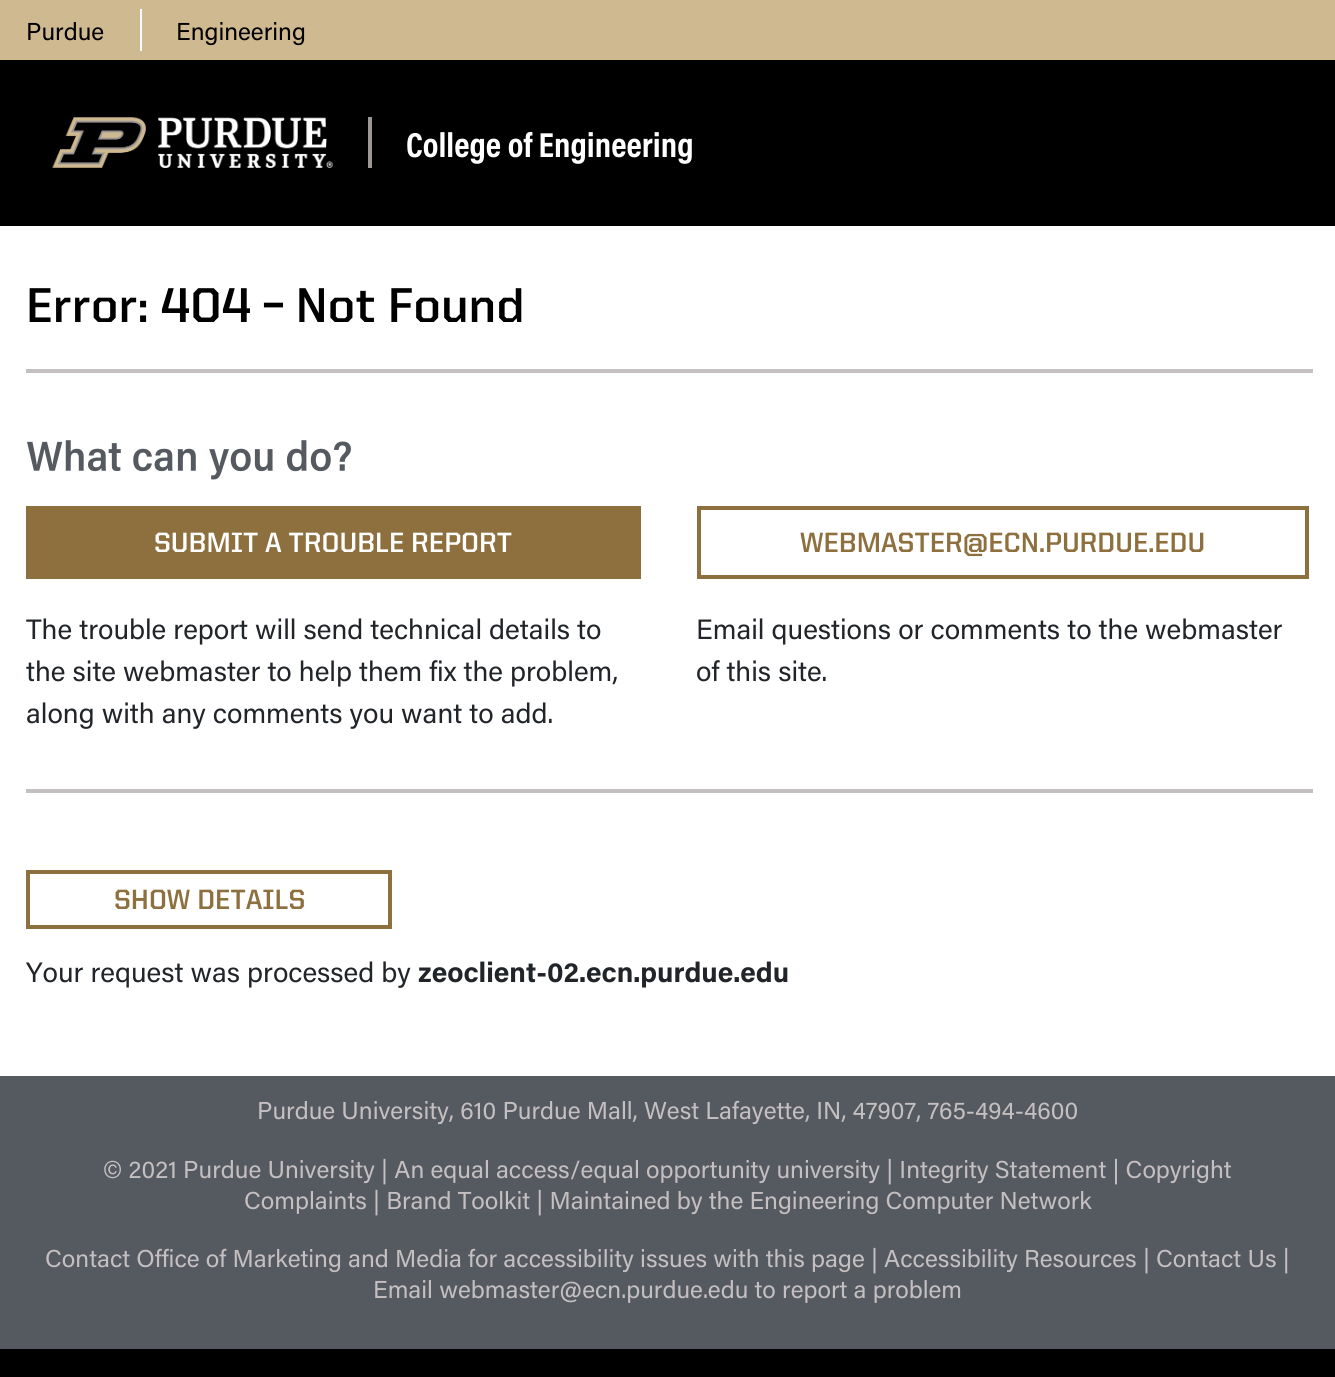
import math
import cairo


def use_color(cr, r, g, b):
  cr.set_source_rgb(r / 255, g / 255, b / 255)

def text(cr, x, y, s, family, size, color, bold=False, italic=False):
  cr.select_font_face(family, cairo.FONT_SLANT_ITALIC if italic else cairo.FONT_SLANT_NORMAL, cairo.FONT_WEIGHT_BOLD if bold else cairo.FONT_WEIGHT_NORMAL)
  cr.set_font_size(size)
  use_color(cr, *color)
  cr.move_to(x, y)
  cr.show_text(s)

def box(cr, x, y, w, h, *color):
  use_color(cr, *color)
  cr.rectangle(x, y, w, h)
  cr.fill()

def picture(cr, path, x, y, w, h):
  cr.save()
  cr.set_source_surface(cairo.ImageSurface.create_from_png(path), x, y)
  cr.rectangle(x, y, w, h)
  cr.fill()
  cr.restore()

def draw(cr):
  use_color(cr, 255, 255, 255)
  cr.paint()
  box(cr, 0, 0, 1335, 60, 207, 185, 145)
  box(cr, 140, 9, 2, 42, 255, 255, 255)
  box(cr, 0, 60, 1335, 166, 0, 0, 0)
  box(cr, 368, 117, 4, 51, 157, 151, 149)
  picture(cr, "img_01.png", 52, 117, 281, 51)
  box(cr, 26, 369, 1287, 4, 196, 191, 192)
  picture(cr, "img_02.png", 27, 440, 324, 40)
  box(cr, 26, 506, 615, 73, 142, 111, 62)
  cr.rectangle(699, 508, 608, 69)
  cr.set_line_width(4)
  cr.stroke()
  box(cr, 26, 789, 1287, 4, 196, 191, 192)
  cr.rectangle(28, 872, 362, 55)
  use_color(cr, 142, 111, 62)
  cr.stroke()
  box(cr, 0, 1349, 1335, 28, 0, 0, 0)
  box(cr, 0, 1076, 1335, 273, 85, 89, 96)
  text(cr, 26, 40, "Purdue", "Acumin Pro", 24.5, (0, 0, 0))
  text(cr, 176, 40, "Engineering", "Acumin Pro", 24.5, (0, 0, 0))
  text(cr, 406, 157, "College of Engineering", "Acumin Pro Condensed", 35, (255, 255, 255), bold=True)
  text(cr, 26, 322, "Error: 404 – Not Found", "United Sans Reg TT", 49, (0, 0, 0), bold=True)
  text(cr, 154, 552, "SUBMIT A TROUBLE REPORT", "United Sans Reg TT", 28, (255, 255, 255), bold=True)
  text(cr, 26, 639, "The trouble report will send technical details to", "Acumin Pro", 28, (33, 37, 41))
  text(cr, 26, 681, "the site webmaster to help them fix the problem,", "Acumin Pro", 28, (33, 37, 41))
  text(cr, 26, 723, "along with any comments you want to add.", "Acumin Pro", 28, (33, 37, 41))
  text(cr, 800, 552, "WEBMASTER@ECN.PURDUE.EDU", "United Sans Reg TT", 28, (142, 111, 62), bold=True)
  text(cr, 696, 639, "Email questions or comments to the webmaster", "Acumin Pro", 28, (33, 37, 41))
  text(cr, 696, 681, "of this site.", "Acumin Pro", 28, (33, 37, 41))
  text(cr, 114, 909, "SHOW DETAILS", "United Sans Reg TT", 28, (142, 111, 62), bold=True)
  text(cr, 26, 982, "Your request was processed by", "Acumin Pro", 28, (33, 37, 41))
  text(cr, 418, 982, "zeoclient-02.ecn.purdue.edu", "Acumin Pro", 28, (33, 37, 41), bold=True)
  text(cr, 257, 1119, "Purdue University, 610 Purdue Mall, West Lafayette, IN, 47907, 765-494-4600", "Acumin Pro", 24.5, (196, 191, 192))
  text(cr, 103, 1178, "© 2021 Purdue University | An equal access/equal opportunity university | Integrity Statement | Copyright", "Acumin Pro", 24.5, (196, 191, 192))
  text(cr, 244, 1209, "Complaints | Brand Toolkit | Maintained by the Engineering Computer Network", "Acumin Pro", 24.5, (196, 191, 192))
  text(cr, 45, 1267, "Contact Office of Marketing and Media for accessibility issues with this page | Accessibility Resources | Contact Us |", "Acumin Pro", 24.5, (196, 191, 192))
  text(cr, 373, 1298, "Email webmaster@ecn.purdue.edu to report a problem", "Acumin Pro", 24.5, (196, 191, 192))


surface = cairo.ImageSurface(cairo.FORMAT_RGB24, 1335, 1377)
cr = cairo.Context(surface)
options = cairo.FontOptions()
options.set_hint_metrics(cairo.HINT_METRICS_OFF)
options.set_hint_style(cairo.HINT_STYLE_NONE)
cr.set_font_options(options)
cr.set_miter_limit(4)
draw(cr)
surface.write_to_png("out.png")
